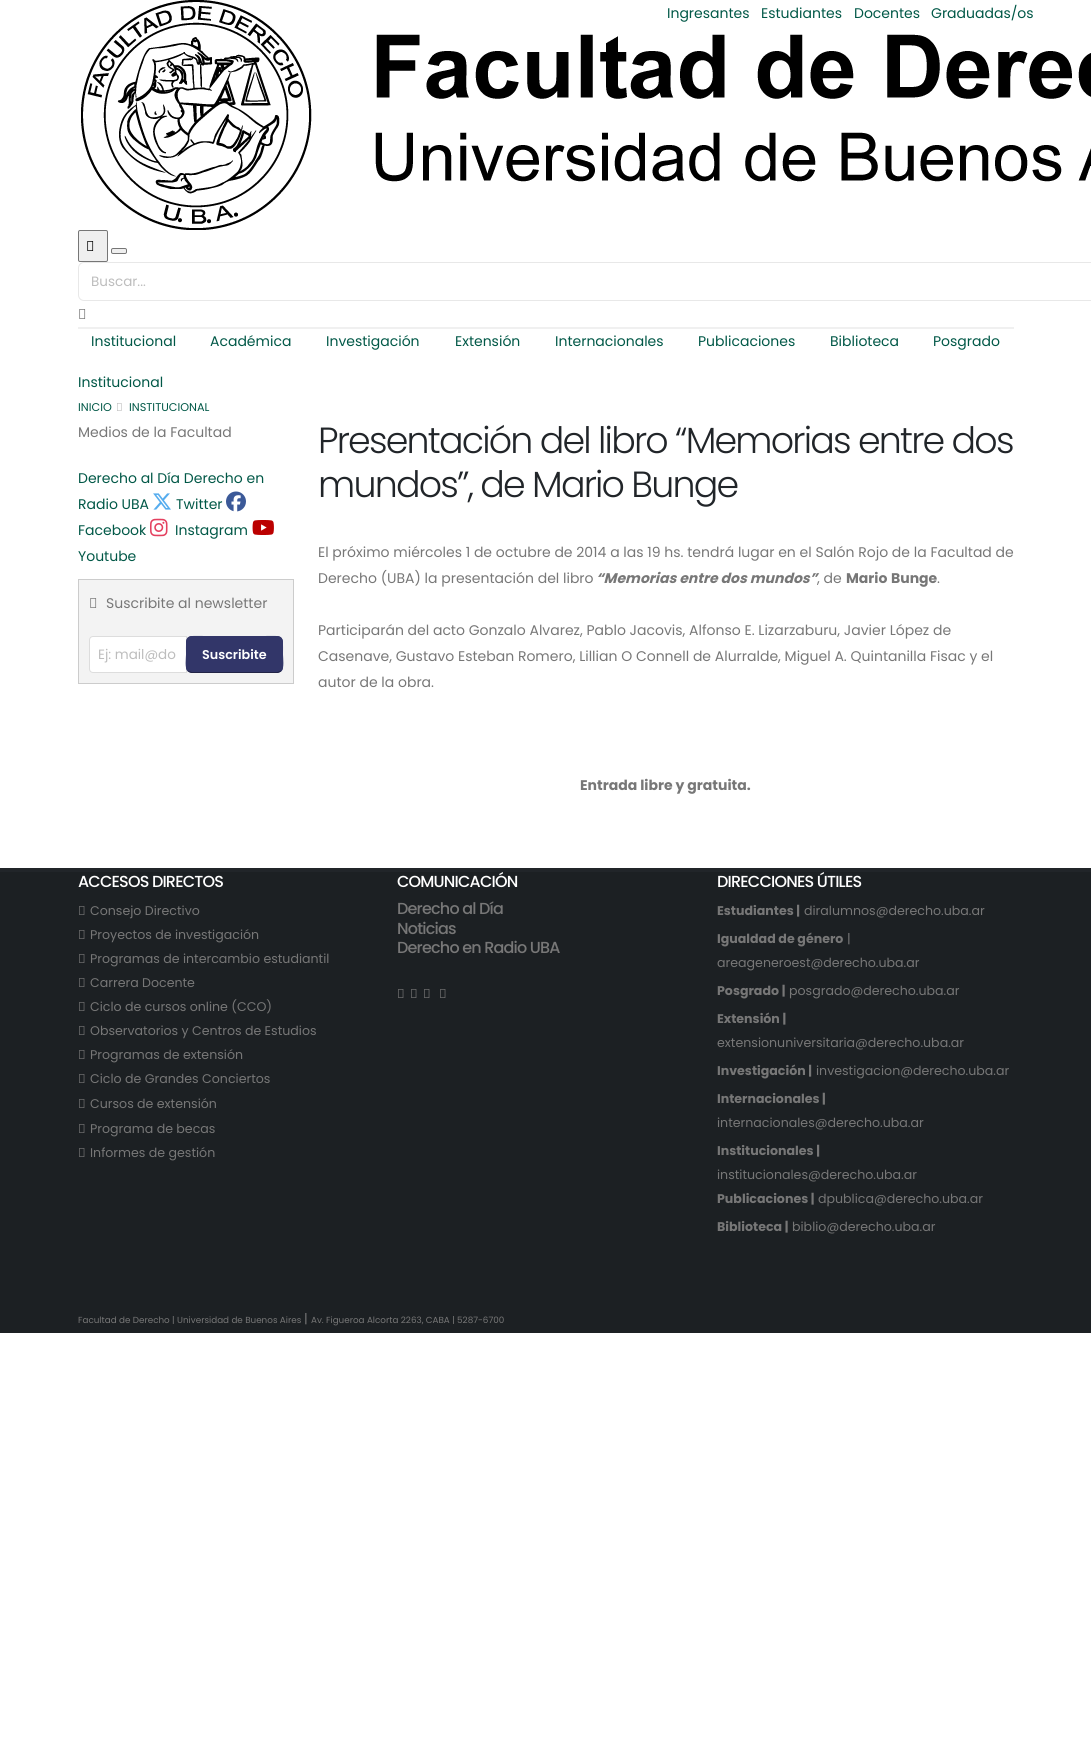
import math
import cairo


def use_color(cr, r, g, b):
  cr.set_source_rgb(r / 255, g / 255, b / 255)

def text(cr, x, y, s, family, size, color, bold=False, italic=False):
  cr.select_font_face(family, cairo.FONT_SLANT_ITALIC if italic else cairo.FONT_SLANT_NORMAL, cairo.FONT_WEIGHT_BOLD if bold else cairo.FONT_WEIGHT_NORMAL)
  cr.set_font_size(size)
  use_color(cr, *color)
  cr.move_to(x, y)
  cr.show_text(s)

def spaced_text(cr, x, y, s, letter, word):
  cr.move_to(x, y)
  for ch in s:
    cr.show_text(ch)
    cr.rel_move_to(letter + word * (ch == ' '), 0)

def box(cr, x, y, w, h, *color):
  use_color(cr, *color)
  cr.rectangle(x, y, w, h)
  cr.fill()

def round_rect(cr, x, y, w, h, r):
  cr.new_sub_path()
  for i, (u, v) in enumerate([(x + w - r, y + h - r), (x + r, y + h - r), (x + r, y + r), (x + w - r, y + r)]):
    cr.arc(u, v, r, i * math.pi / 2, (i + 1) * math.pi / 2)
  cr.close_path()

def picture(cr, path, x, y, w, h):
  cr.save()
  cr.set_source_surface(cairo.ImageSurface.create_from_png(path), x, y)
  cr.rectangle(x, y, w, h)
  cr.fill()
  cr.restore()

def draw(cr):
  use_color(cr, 255, 255, 255)
  cr.paint()
  box(cr, 78, 327, 936, 2, 240, 240, 240)
  picture(cr, "img_01.png", 81, 0, 1010, 230)
  use_color(cr, 239, 239, 239)
  round_rect(cr, 78.5, 230.5, 29, 31, 1.5)
  cr.fill_preserve()
  use_color(cr, 118, 118, 118)
  cr.set_line_width(1)
  cr.stroke()
  picture(cr, "img_02.png", 87, 241, 7, 10)
  use_color(cr, 239, 239, 239)
  round_rect(cr, 111.5, 248.5, 15, 5, 1.5)
  cr.fill_preserve()
  use_color(cr, 118, 118, 118)
  cr.stroke()
  round_rect(cr, 78.5, 262.5, 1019, 38, 5.5)
  use_color(cr, 232, 232, 232)
  cr.stroke()
  picture(cr, "img_03.png", 79, 309, 7, 10)
  picture(cr, "img_04.png", 117, 403, 5, 8)
  picture(cr, "img_05.png", 153, 493, 18, 17)
  picture(cr, "img_06.png", 226, 491, 20, 21)
  picture(cr, "img_07.png", 150, 518, 18, 19)
  picture(cr, "img_08.png", 252, 520, 22, 15)
  use_color(cr, 243, 243, 243)
  cr.rectangle(78.5, 579.5, 215, 104)
  cr.fill_preserve()
  use_color(cr, 204, 204, 204)
  cr.stroke()
  picture(cr, "img_09.png", 90, 598, 7, 10)
  use_color(cr, 255, 255, 255)
  cr.new_path()
  cr.move_to(93, 636.5)
  cr.line_to(186.5, 636.5)
  cr.line_to(186.5, 672.5)
  cr.line_to(93, 672.5)
  cr.curve_to(91, 672.5, 89.5, 671, 89.5, 669)
  cr.line_to(89.5, 640)
  cr.curve_to(89.5, 638, 91, 636.5, 93, 636.5)
  cr.close_path()
  cr.fill_preserve()
  use_color(cr, 221, 221, 221)
  cr.stroke()
  use_color(cr, 50, 54, 105)
  round_rect(cr, 186, 636, 97, 37, 6)
  cr.fill()
  cr.new_path()
  cr.move_to(281, 671)
  cr.line_to(277.5, 672.5)
  cr.line_to(191.5, 672.5)
  cr.line_to(188, 671)
  use_color(cr, 34, 36, 70)
  cr.stroke()
  cr.new_path()
  cr.move_to(188, 671)
  cr.curve_to(185, 668, 186.5, 658, 186.5, 654.5)
  cr.curve_to(186.5, 634, 184.5, 636.5, 206, 636.5)
  cr.line_to(263, 636.5)
  cr.curve_to(284.5, 636.5, 282.5, 634, 282.5, 654.5)
  cr.curve_to(282.5, 658, 284, 668, 281, 671)
  use_color(cr, 50, 54, 105)
  cr.stroke()
  box(cr, 0, 872, 1091, 461, 28, 32, 35)
  box(cr, 0, 868, 1091, 4, 33, 37, 41)
  picture(cr, "img_10.png", 79, 906, 6, 9)
  picture(cr, "img_10.png", 79, 930, 6, 9)
  picture(cr, "img_10.png", 79, 954, 6, 9)
  picture(cr, "img_10.png", 79, 978, 6, 9)
  picture(cr, "img_10.png", 79, 1002, 6, 9)
  picture(cr, "img_10.png", 79, 1026, 6, 9)
  picture(cr, "img_10.png", 79, 1050, 6, 9)
  picture(cr, "img_10.png", 79, 1074, 6, 9)
  picture(cr, "img_10.png", 79, 1099, 6, 9)
  picture(cr, "img_10.png", 79, 1124, 6, 9)
  picture(cr, "img_10.png", 79, 1148, 6, 9)
  picture(cr, "img_10.png", 398, 989, 6, 9)
  picture(cr, "img_10.png", 411, 989, 6, 9)
  picture(cr, "img_10.png", 424, 989, 6, 9)
  picture(cr, "img_10.png", 440, 989, 6, 9)
  text(cr, 667, 18, "Ingresantes", "Poppins", 14, (1, 88, 71))
  text(cr, 761, 18, "Estudiantes", "Poppins", 14, (1, 88, 71))
  text(cr, 854, 18, "Docentes", "Poppins", 14, (1, 88, 71))
  text(cr, 931, 18, "Graduadas/os", "Poppins", 14, (1, 88, 71))
  text(cr, 91, 286, "Buscar...", "Poppins", 13.5, (189, 189, 189))
  text(cr, 91, 346, "Institucional", "Poppins", 14, (1, 88, 71))
  text(cr, 210, 346, "Académica", "Poppins", 14, (1, 88, 71))
  text(cr, 326, 346, "Investigación", "Poppins", 14, (1, 88, 71))
  text(cr, 455, 346, "Extensión", "Poppins", 14, (1, 88, 71))
  text(cr, 555, 346, "Internacionales", "Poppins", 14, (1, 88, 71))
  text(cr, 698, 346, "Publicaciones", "Poppins", 14, (1, 88, 71))
  text(cr, 830, 346, "Biblioteca", "Poppins", 14, (1, 88, 71))
  text(cr, 933, 346, "Posgrado", "Poppins", 14, (1, 88, 71))
  text(cr, 78, 387, "Institucional", "Poppins", 14, (1, 88, 71))
  text(cr, 78, 411, "INICIO", "Poppins", 11.25, (1, 88, 71))
  text(cr, 129, 411, "INSTITUCIONAL", "Poppins", 11.25, (1, 88, 71))
  text(cr, 78, 437, "Medios de la Facultad", "Poppins", 14, (119, 119, 119))
  text(cr, 78, 483, "Derecho al Día Derecho en", "Poppins", 14, (1, 88, 71))
  text(cr, 78, 509, "Radio UBA", "Poppins", 14, (1, 88, 71))
  text(cr, 176, 509, "Twitter", "Poppins", 14, (1, 88, 71))
  text(cr, 78, 535, "Facebook", "Poppins", 14, (1, 88, 71))
  text(cr, 175, 535, "Instagram", "Poppins", 14, (1, 88, 71))
  text(cr, 78, 561, "Youtube", "Poppins", 14, (1, 88, 71))
  text(cr, 106, 608, "Suscribite al newsletter", "Poppins", 14, (119, 119, 119))
  text(cr, 98, 659, "Ej: mail@do", "Poppins", 13.5, (189, 189, 189))
  text(cr, 202, 659, "Suscribite", "Poppins SemiBold", 12.75, (255, 255, 255))
  cr.select_font_face("Poppins Light")
  cr.set_font_size(36.4)
  use_color(cr, 33, 37, 41)
  spaced_text(cr, 318, 453, "Presentación del libro “Memorias entre dos", -1.8, 0)
  spaced_text(cr, 318, 497, "mundos”, de Mario Bunge", -1.8, 0)
  text(cr, 318, 557, "El próximo miércoles 1 de octubre de 2014 a las 19 hs. tendrá lugar en el Salón Rojo de la Facultad de", "Poppins", 14, (119, 119, 119))
  text(cr, 318, 583, "Derecho (UBA) la presentación del libro", "Poppins", 14, (119, 119, 119))
  text(cr, 596, 583, "“Memorias entre dos mundos”", "Poppins", 14, (119, 119, 119), bold=True, italic=True)
  text(cr, 817, 583, ", de", "Poppins", 14, (119, 119, 119))
  text(cr, 846, 583, "Mario", "Poppins", 14, (119, 119, 119), bold=True)
  text(cr, 891, 583, "Bunge", "Poppins", 14, (119, 119, 119), bold=True)
  text(cr, 937, 583, ".", "Poppins", 14, (119, 119, 119))
  text(cr, 318, 635, "Participarán del acto Gonzalo Alvarez, Pablo Jacovis, Alfonso E. Lizarzaburu, Javier López de", "Poppins", 14, (119, 119, 119))
  text(cr, 318, 661, "Casenave, Gustavo Esteban Romero, Lillian O Connell de Alurralde, Miguel A. Quintanilla Fisac y el", "Poppins", 14, (119, 119, 119))
  text(cr, 318, 687, "autor de la obra.", "Poppins", 14, (119, 119, 119))
  text(cr, 580, 790, "Entrada libre y gratuita.", "Poppins", 14, (119, 119, 119), bold=True)
  cr.select_font_face("Poppins Medium")
  cr.set_font_size(16)
  use_color(cr, 255, 255, 255)
  spaced_text(cr, 78, 887, "ACCESOS DIRECTOS", -0.8, 0)
  text(cr, 90, 915, "Consejo Directivo", "Poppins", 12.6, (119, 119, 119))
  text(cr, 90, 939, "Proyectos de investigación", "Poppins", 12.6, (119, 119, 119))
  text(cr, 90, 963, "Programas de intercambio estudiantil", "Poppins", 12.6, (119, 119, 119))
  text(cr, 90, 987, "Carrera Docente", "Poppins", 12.6, (119, 119, 119))
  text(cr, 90, 1011, "Ciclo de cursos online (CCO)", "Poppins", 12.6, (119, 119, 119))
  text(cr, 90, 1035, "Observatorios y Centros de Estudios", "Poppins", 12.6, (119, 119, 119))
  text(cr, 90, 1059, "Programas de extensión", "Poppins", 12.6, (119, 119, 119))
  text(cr, 90, 1083, "Ciclo de Grandes Conciertos", "Poppins", 12.6, (119, 119, 119))
  text(cr, 90, 1108, "Cursos de extensión", "Poppins", 12.6, (119, 119, 119))
  text(cr, 90, 1133, "Programa de becas", "Poppins", 12.6, (119, 119, 119))
  text(cr, 90, 1157, "Informes de gestión", "Poppins", 12.6, (119, 119, 119))
  cr.select_font_face("Poppins Medium")
  cr.set_font_size(16)
  use_color(cr, 255, 255, 255)
  spaced_text(cr, 397, 887, "COMUNICACIÓN", -0.8, 0)
  use_color(cr, 119, 119, 119)
  spaced_text(cr, 397, 914, "Derecho al Día", -0.8, 0)
  spaced_text(cr, 397, 934, "Noticias", -0.8, 0)
  spaced_text(cr, 397, 953, "Derecho en Radio UBA", -0.8, 0)
  use_color(cr, 255, 255, 255)
  spaced_text(cr, 717, 887, "DIRECCIONES ÚTILES", -0.8, 0)
  text(cr, 717, 915, "Estudiantes |", "Poppins", 12.6, (119, 119, 119), bold=True)
  text(cr, 804, 915, "diralumnos@derecho.uba.ar", "Poppins", 12.6, (119, 119, 119))
  text(cr, 717, 943, "Igualdad de género", "Poppins", 12.6, (119, 119, 119), bold=True)
  text(cr, 847, 943, "|", "Poppins", 12.6, (119, 119, 119))
  text(cr, 717, 967, "areageneroest@derecho.uba.ar", "Poppins", 12.6, (119, 119, 119))
  text(cr, 717, 995, "Posgrado |", "Poppins", 12.6, (119, 119, 119), bold=True)
  text(cr, 789, 995, "posgrado@derecho.uba.ar", "Poppins", 12.6, (119, 119, 119))
  text(cr, 717, 1023, "Extensión |", "Poppins", 12.6, (119, 119, 119), bold=True)
  text(cr, 717, 1047, "extensionuniversitaria@derecho.uba.ar", "Poppins", 12.6, (119, 119, 119))
  text(cr, 717, 1075, "Investigación |", "Poppins", 12.6, (119, 119, 119), bold=True)
  text(cr, 816, 1075, "investigacion@derecho.uba.ar", "Poppins", 12.6, (119, 119, 119))
  text(cr, 717, 1103, "Internacionales |", "Poppins", 12.6, (119, 119, 119), bold=True)
  text(cr, 717, 1127, "internacionales@derecho.uba.ar", "Poppins", 12.6, (119, 119, 119))
  text(cr, 717, 1155, "Institucionales |", "Poppins", 12.6, (119, 119, 119), bold=True)
  text(cr, 717, 1179, "institucionales@derecho.uba.ar", "Poppins", 12.6, (119, 119, 119))
  text(cr, 717, 1203, "Publicaciones |", "Poppins", 12.6, (119, 119, 119), bold=True)
  text(cr, 818, 1203, "dpublica@derecho.uba.ar", "Poppins", 12.6, (119, 119, 119))
  text(cr, 717, 1231, "Biblioteca |", "Poppins", 12.6, (119, 119, 119), bold=True)
  text(cr, 792, 1231, "biblio@derecho.uba.ar", "Poppins", 12.6, (119, 119, 119))
  text(cr, 78, 1323, "Facultad de Derecho | Universidad de Buenos Aires", "Poppins", 8.8, (119, 119, 119))
  text(cr, 304, 1323, "|", "Poppins", 12.6, (119, 119, 119))
  text(cr, 311, 1323, "Av. Figueroa Alcorta 2263, CABA | 5287-6700", "Poppins", 8.8, (119, 119, 119))


surface = cairo.ImageSurface(cairo.FORMAT_RGB24, 1091, 1763)
cr = cairo.Context(surface)
options = cairo.FontOptions()
options.set_hint_metrics(cairo.HINT_METRICS_OFF)
options.set_hint_style(cairo.HINT_STYLE_NONE)
cr.set_font_options(options)
cr.set_miter_limit(4)
draw(cr)
surface.write_to_png("out.png")
